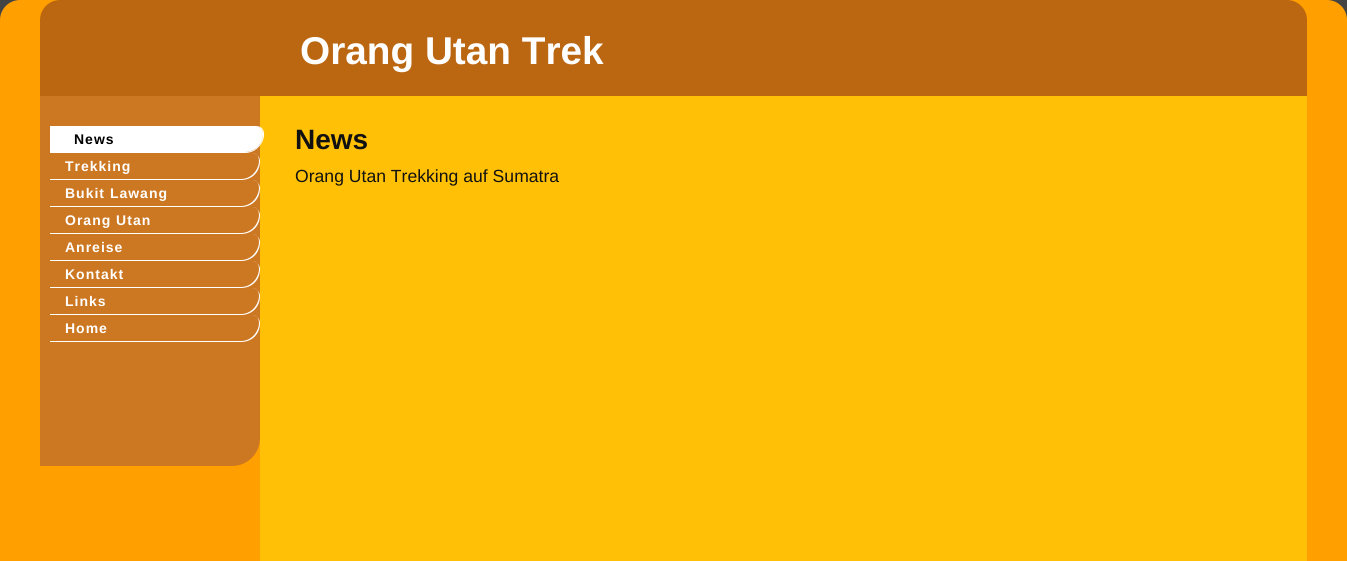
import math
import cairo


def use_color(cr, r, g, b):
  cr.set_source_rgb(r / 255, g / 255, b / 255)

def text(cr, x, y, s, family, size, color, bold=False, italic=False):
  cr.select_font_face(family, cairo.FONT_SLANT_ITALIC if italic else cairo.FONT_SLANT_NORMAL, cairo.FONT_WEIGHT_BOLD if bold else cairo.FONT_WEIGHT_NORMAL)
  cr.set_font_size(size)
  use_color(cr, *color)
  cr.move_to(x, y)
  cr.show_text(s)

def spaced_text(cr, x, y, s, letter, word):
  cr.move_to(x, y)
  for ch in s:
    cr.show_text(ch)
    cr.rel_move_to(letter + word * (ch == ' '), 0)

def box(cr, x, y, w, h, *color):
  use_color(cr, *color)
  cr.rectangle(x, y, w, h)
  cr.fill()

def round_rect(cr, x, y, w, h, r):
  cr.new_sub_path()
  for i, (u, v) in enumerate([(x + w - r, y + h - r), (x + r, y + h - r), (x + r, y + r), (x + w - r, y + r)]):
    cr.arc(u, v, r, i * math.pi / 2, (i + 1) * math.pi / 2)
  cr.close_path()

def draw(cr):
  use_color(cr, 68, 68, 68)
  cr.paint()
  use_color(cr, 255, 159, 0)
  round_rect(cr, 0, 0, 1347, 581, 20)
  cr.fill()
  use_color(cr, 187, 102, 17)
  cr.new_path()
  cr.move_to(60, 0)
  cr.line_to(1287, 0)
  cr.curve_to(1298, 0, 1307, 9, 1307, 20)
  cr.line_to(1307, 96)
  cr.line_to(40, 96)
  cr.line_to(40, 20)
  cr.curve_to(40, 9, 49, 0, 60, 0)
  cr.close_path()
  cr.fill()
  use_color(cr, 204, 119, 34)
  cr.new_path()
  cr.move_to(40, 96)
  cr.line_to(260, 96)
  cr.line_to(260, 438)
  cr.curve_to(260, 453.5, 247.5, 466, 232, 466)
  cr.line_to(40, 466)
  cr.close_path()
  cr.fill()
  box(cr, 260, 96, 1047, 465, 255, 192, 6)
  use_color(cr, 255, 255, 255)
  cr.new_path()
  cr.move_to(50, 126)
  cr.line_to(256, 126)
  cr.curve_to(260, 126, 263, 130, 263, 134)
  cr.curve_to(263, 144, 255, 152, 245, 152)
  cr.line_to(50, 152)
  cr.close_path()
  cr.fill()
  cr.set_fill_rule(cairo.FILL_RULE_EVEN_ODD)
  cr.new_path()
  cr.move_to(50, 126)
  cr.line_to(256, 126)
  cr.curve_to(271, 126, 264, 153, 245, 153)
  cr.line_to(50, 153)
  cr.close_path()
  cr.move_to(50, 126)
  cr.line_to(256, 126)
  cr.curve_to(260, 126, 263, 130, 263, 134)
  cr.curve_to(263, 144, 255, 152, 245, 152)
  cr.line_to(50, 152)
  cr.close_path()
  cr.fill()
  cr.new_path()
  cr.move_to(50, 153)
  cr.line_to(252, 153)
  cr.curve_to(256, 153, 260, 157, 260, 161)
  cr.curve_to(260, 172, 252, 180, 241, 180)
  cr.line_to(50, 180)
  cr.close_path()
  cr.move_to(50, 153)
  cr.line_to(252, 153)
  cr.curve_to(265, 153, 259, 179, 241, 179)
  cr.line_to(50, 179)
  cr.close_path()
  cr.fill()
  cr.new_path()
  cr.move_to(50, 180)
  cr.line_to(252, 180)
  cr.curve_to(256, 180, 260, 184, 260, 188)
  cr.curve_to(260, 199, 252, 207, 241, 207)
  cr.line_to(50, 207)
  cr.close_path()
  cr.move_to(50, 180)
  cr.line_to(252, 180)
  cr.curve_to(265, 180, 259, 206, 241, 206)
  cr.line_to(50, 206)
  cr.close_path()
  cr.fill()
  cr.new_path()
  cr.move_to(50, 207)
  cr.line_to(252, 207)
  cr.curve_to(256, 207, 260, 211, 260, 215)
  cr.curve_to(260, 226, 252, 234, 241, 234)
  cr.line_to(50, 234)
  cr.close_path()
  cr.move_to(50, 207)
  cr.line_to(252, 207)
  cr.curve_to(265, 207, 259, 233, 241, 233)
  cr.line_to(50, 233)
  cr.close_path()
  cr.fill()
  cr.new_path()
  cr.move_to(50, 234)
  cr.line_to(252, 234)
  cr.curve_to(256, 234, 260, 238, 260, 242)
  cr.curve_to(260, 253, 252, 261, 241, 261)
  cr.line_to(50, 261)
  cr.close_path()
  cr.move_to(50, 234)
  cr.line_to(252, 234)
  cr.curve_to(265, 234, 259, 260, 241, 260)
  cr.line_to(50, 260)
  cr.close_path()
  cr.fill()
  cr.new_path()
  cr.move_to(50, 261)
  cr.line_to(252, 261)
  cr.curve_to(256, 261, 260, 265, 260, 269)
  cr.curve_to(260, 280, 252, 288, 241, 288)
  cr.line_to(50, 288)
  cr.close_path()
  cr.move_to(50, 261)
  cr.line_to(252, 261)
  cr.curve_to(265, 261, 259, 287, 241, 287)
  cr.line_to(50, 287)
  cr.close_path()
  cr.fill()
  cr.new_path()
  cr.move_to(50, 288)
  cr.line_to(252, 288)
  cr.curve_to(256, 288, 260, 292, 260, 296)
  cr.curve_to(260, 307, 252, 315, 241, 315)
  cr.line_to(50, 315)
  cr.close_path()
  cr.move_to(50, 288)
  cr.line_to(252, 288)
  cr.curve_to(265, 288, 259, 314, 241, 314)
  cr.line_to(50, 314)
  cr.close_path()
  cr.fill()
  cr.new_path()
  cr.move_to(50, 315)
  cr.line_to(252, 315)
  cr.curve_to(256, 315, 260, 319, 260, 323)
  cr.curve_to(260, 334, 252, 342, 241, 342)
  cr.line_to(50, 342)
  cr.close_path()
  cr.move_to(50, 315)
  cr.line_to(252, 315)
  cr.curve_to(265, 315, 259, 341, 241, 341)
  cr.line_to(50, 341)
  cr.close_path()
  cr.fill()
  text(cr, 300, 64, "Orang Utan Trek", "Liberation Sans", 38.75, (255, 255, 255), bold=True)
  cr.set_font_size(14)
  use_color(cr, 0, 0, 0)
  spaced_text(cr, 74, 144, "News", 1, 0)
  use_color(cr, 255, 255, 255)
  spaced_text(cr, 65, 171, "Trekking", 1, 0)
  spaced_text(cr, 65, 198, "Bukit Lawang", 1, 0)
  spaced_text(cr, 65, 225, "Orang Utan", 1, 0)
  spaced_text(cr, 65, 252, "Anreise", 1, 0)
  spaced_text(cr, 65, 279, "Kontakt", 1, 0)
  spaced_text(cr, 65, 306, "Links", 1, 0)
  spaced_text(cr, 65, 333, "Home", 1, 0)
  text(cr, 295, 149, "News", "Liberation Sans", 28, (17, 17, 17), bold=True)
  text(cr, 295, 182, "Orang Utan Trekking auf Sumatra", "Liberation Sans", 17.6, (17, 17, 17))


surface = cairo.ImageSurface(cairo.FORMAT_RGB24, 1347, 561)
cr = cairo.Context(surface)
options = cairo.FontOptions()
options.set_hint_metrics(cairo.HINT_METRICS_OFF)
options.set_hint_style(cairo.HINT_STYLE_NONE)
cr.set_font_options(options)
cr.set_miter_limit(4)
draw(cr)
surface.write_to_png("out.png")
